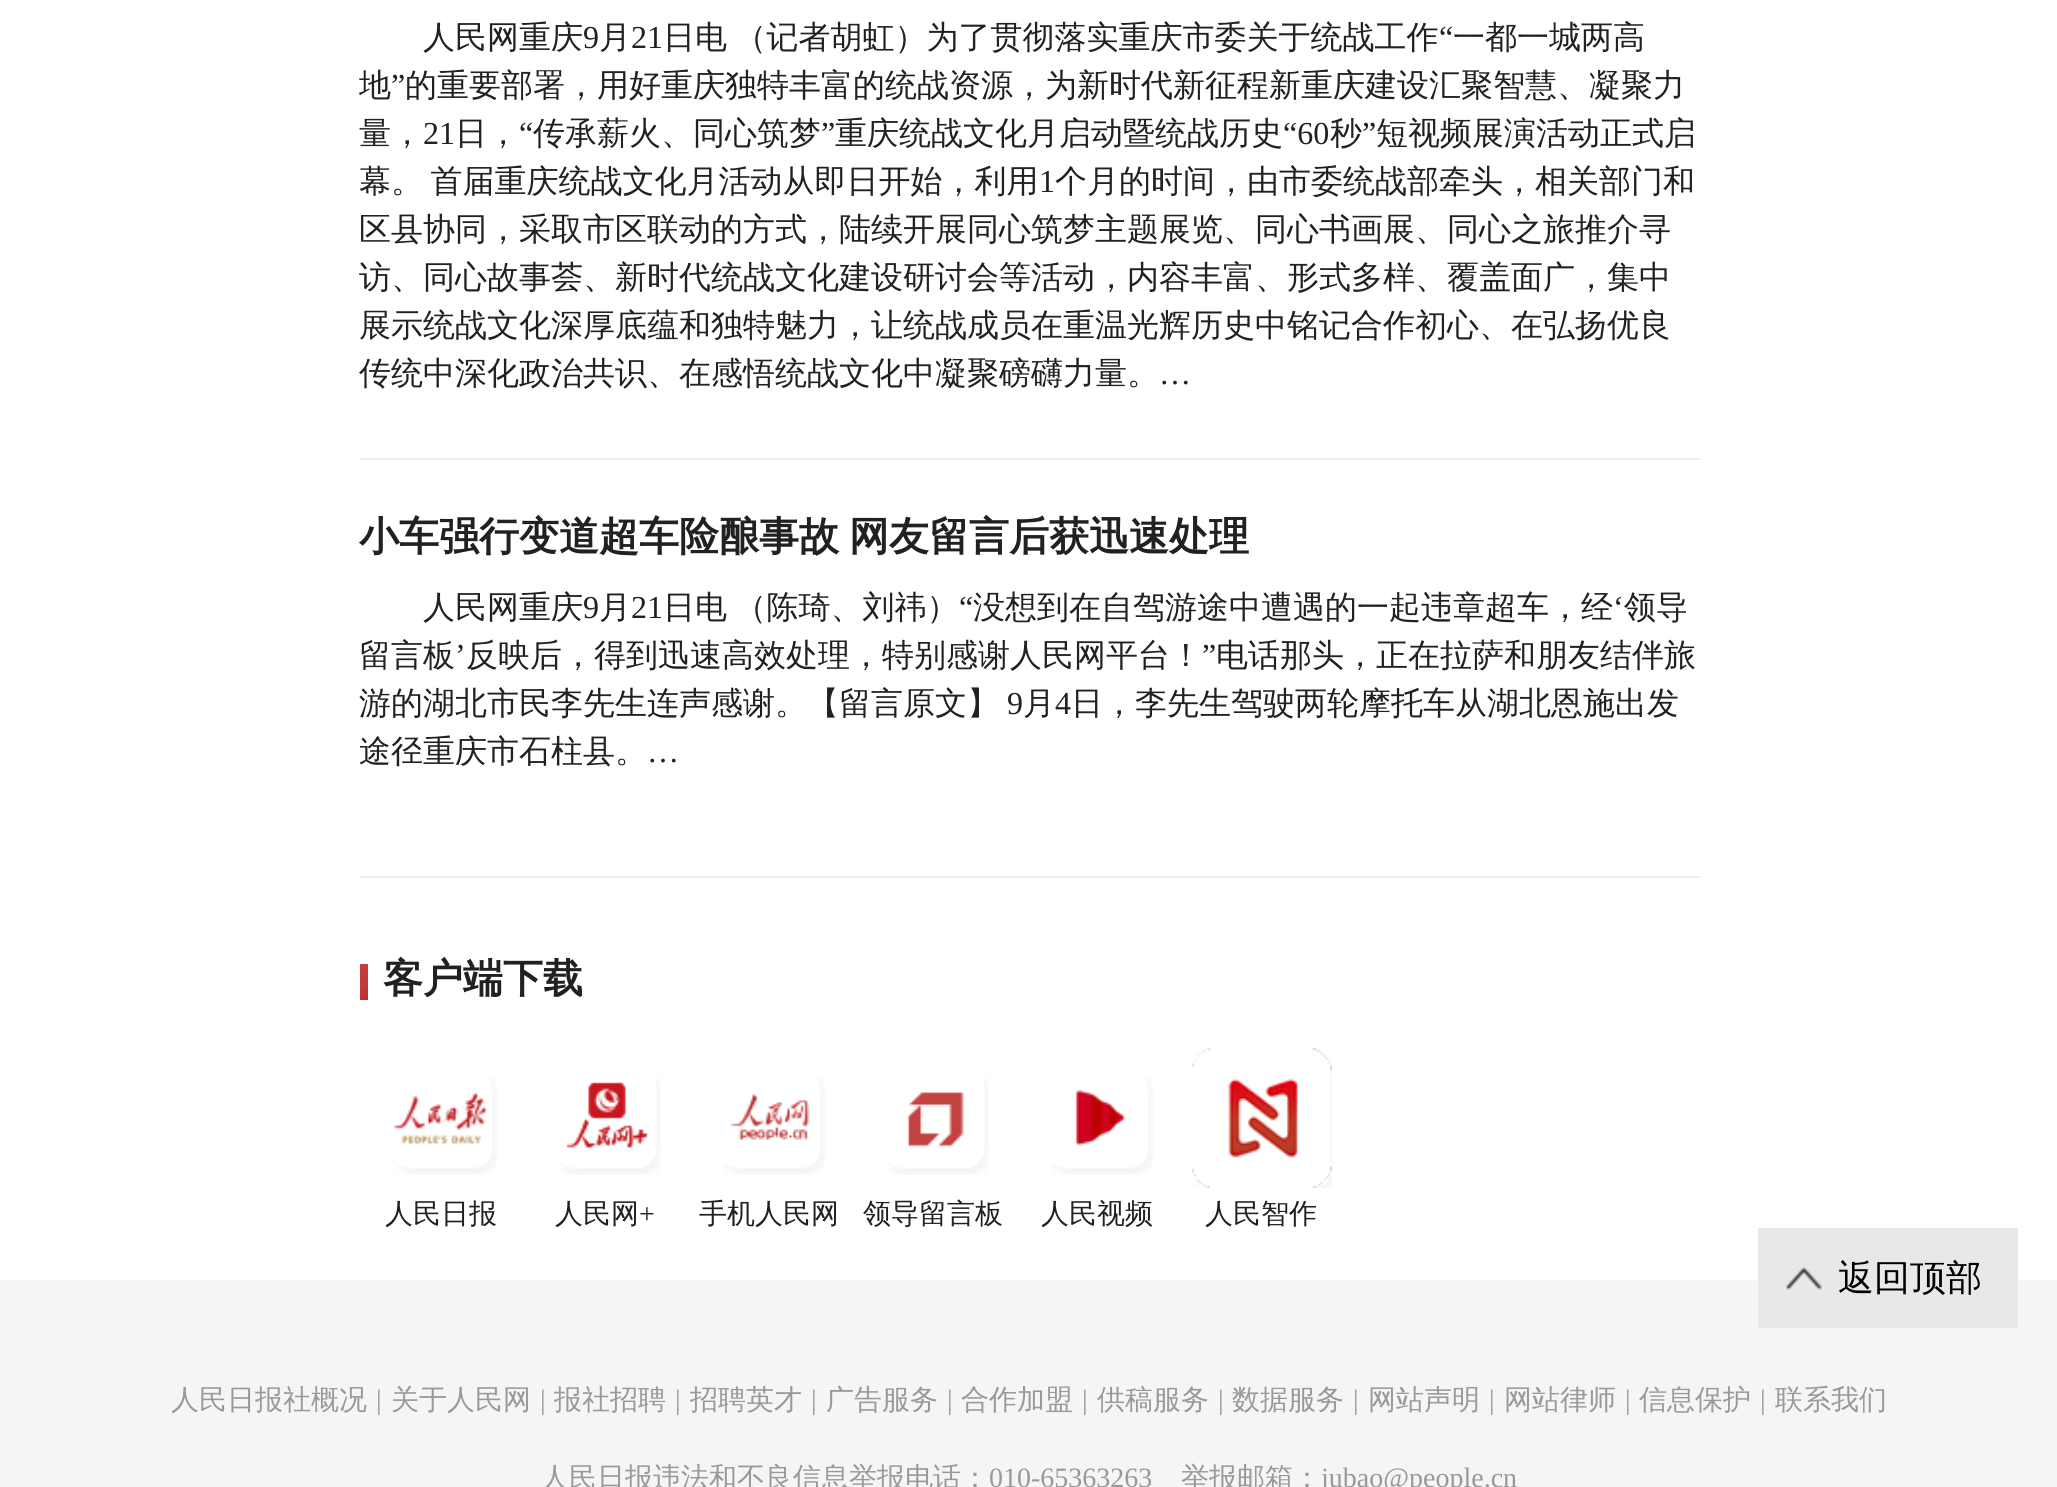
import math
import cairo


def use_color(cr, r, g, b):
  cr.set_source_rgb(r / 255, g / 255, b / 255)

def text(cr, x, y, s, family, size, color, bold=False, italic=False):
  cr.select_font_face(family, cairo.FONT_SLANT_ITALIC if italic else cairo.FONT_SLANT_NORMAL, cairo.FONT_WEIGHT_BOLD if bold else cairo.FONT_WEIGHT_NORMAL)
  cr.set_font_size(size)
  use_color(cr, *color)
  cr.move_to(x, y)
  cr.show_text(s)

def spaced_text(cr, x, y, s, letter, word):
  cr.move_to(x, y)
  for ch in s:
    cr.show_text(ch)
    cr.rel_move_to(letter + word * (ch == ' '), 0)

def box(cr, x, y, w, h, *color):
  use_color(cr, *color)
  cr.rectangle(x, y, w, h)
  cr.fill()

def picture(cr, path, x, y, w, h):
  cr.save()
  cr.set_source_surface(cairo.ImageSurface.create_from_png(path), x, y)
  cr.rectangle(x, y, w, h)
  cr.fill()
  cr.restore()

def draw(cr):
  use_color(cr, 255, 255, 255)
  cr.paint()
  box(cr, 360, 458, 1340, 2, 236, 236, 236)
  box(cr, 360, 876, 1340, 2, 236, 236, 236)
  gradient = cairo.LinearGradient(353, 971, 375, 993)
  gradient.add_color_stop_rgba(0, 0.773, 0.239, 0.239, 1)
  gradient.add_color_stop_rgba(0.49, 0.769, 0.227, 0.227, 1)
  gradient.add_color_stop_rgba(1, 0.733, 0.176, 0.176, 1)
  cr.set_source(gradient)
  cr.rectangle(360, 964, 8, 36)
  cr.fill()
  picture(cr, "img_01.png", 393, 1077, 104, 98)
  picture(cr, "img_02.png", 560, 1077, 101, 98)
  picture(cr, "img_03.png", 724, 1077, 101, 98)
  picture(cr, "img_04.png", 888, 1077, 101, 98)
  picture(cr, "img_05.png", 1052, 1077, 101, 98)
  picture(cr, "img_06.png", 1192, 1048, 140, 140)
  box(cr, 0, 1280, 2057, 207, 245, 245, 247)
  picture(cr, "img_07.png", 1758, 1228, 260, 100)
  text(cr, 423, 48, "人民网重庆", "WenQuanYi Zen Hei Medium", 32, (33, 33, 33))
  text(cr, 583, 48, "9", "Liberation Serif", 32, (33, 33, 33))
  text(cr, 599, 48, "月", "WenQuanYi Zen Hei Medium", 32, (33, 33, 33))
  text(cr, 631, 48, "21", "Liberation Serif", 32, (33, 33, 33))
  cr.select_font_face("WenQuanYi Zen Hei Medium")
  spaced_text(cr, 663, 48, "日电 （记者胡虹）为了贯彻落实重庆市委关于统战工作", 0, -2)
  text(cr, 1439, 48, "“", "Liberation Serif", 32, (33, 33, 33))
  text(cr, 1453, 48, "一都一城两高", "WenQuanYi Zen Hei Medium", 32, (33, 33, 33))
  text(cr, 359, 96, "地", "WenQuanYi Zen Hei Medium", 32, (33, 33, 33))
  text(cr, 391, 96, "”", "Liberation Serif", 32, (33, 33, 33))
  text(cr, 405, 96, "的重要部署，用好重庆独特丰富的统战资源，为新时代新征程新重庆建设汇聚智慧、凝聚力", "WenQuanYi Zen Hei Medium", 32, (33, 33, 33))
  text(cr, 359, 144, "量，", "WenQuanYi Zen Hei Medium", 32, (33, 33, 33))
  text(cr, 423, 144, "21", "Liberation Serif", 32, (33, 33, 33))
  text(cr, 455, 144, "日，", "WenQuanYi Zen Hei Medium", 32, (33, 33, 33))
  text(cr, 519, 144, "“", "Liberation Serif", 32, (33, 33, 33))
  text(cr, 533, 144, "传承薪火、同心筑梦", "WenQuanYi Zen Hei Medium", 32, (33, 33, 33))
  text(cr, 821, 144, "”", "Liberation Serif", 32, (33, 33, 33))
  text(cr, 835, 144, "重庆统战文化月启动暨统战历史", "WenQuanYi Zen Hei Medium", 32, (33, 33, 33))
  text(cr, 1283, 144, "“60", "Liberation Serif", 32, (33, 33, 33))
  text(cr, 1330, 144, "秒", "WenQuanYi Zen Hei Medium", 32, (33, 33, 33))
  text(cr, 1362, 144, "”", "Liberation Serif", 32, (33, 33, 33))
  text(cr, 1376, 144, "短视频展演活动正式启", "WenQuanYi Zen Hei Medium", 32, (33, 33, 33))
  spaced_text(cr, 359, 192, "幕。 首届重庆统战文化月活动从即日开始，利用", 0, -2)
  text(cr, 1039, 192, "1", "Liberation Serif", 32, (33, 33, 33))
  text(cr, 1055, 192, "个月的时间，由市委统战部牵头，相关部门和", "WenQuanYi Zen Hei Medium", 32, (33, 33, 33))
  text(cr, 359, 240, "区县协同，采取市区联动的方式，陆续开展同心筑梦主题展览、同心书画展、同心之旅推介寻", "WenQuanYi Zen Hei Medium", 32, (33, 33, 33))
  text(cr, 359, 288, "访、同心故事荟、新时代统战文化建设研讨会等活动，内容丰富、形式多样、覆盖面广，集中", "WenQuanYi Zen Hei Medium", 32, (33, 33, 33))
  text(cr, 359, 336, "展示统战文化深厚底蕴和独特魅力，让统战成员在重温光辉历史中铭记合作初心、在弘扬优良", "WenQuanYi Zen Hei Medium", 32, (33, 33, 33))
  text(cr, 359, 384, "传统中深化政治共识、在感悟统战文化中凝聚磅礴力量。", "WenQuanYi Zen Hei Medium", 32, (33, 33, 33))
  text(cr, 1159, 384, "…", "Liberation Serif", 32, (33, 33, 33))
  cr.select_font_face("WenQuanYi Zen Hei", cairo.FONT_SLANT_NORMAL, cairo.FONT_WEIGHT_BOLD)
  cr.set_font_size(40)
  spaced_text(cr, 359, 550, "小车强行变道超车险酿事故 网友留言后获迅速处理", 0, -2)
  text(cr, 423, 618, "人民网重庆", "WenQuanYi Zen Hei Medium", 32, (33, 33, 33))
  text(cr, 583, 618, "9", "Liberation Serif", 32, (33, 33, 33))
  text(cr, 599, 618, "月", "WenQuanYi Zen Hei Medium", 32, (33, 33, 33))
  text(cr, 631, 618, "21", "Liberation Serif", 32, (33, 33, 33))
  cr.select_font_face("WenQuanYi Zen Hei Medium")
  spaced_text(cr, 663, 618, "日电 （陈琦、刘祎）", 0, -2)
  text(cr, 959, 618, "“", "Liberation Serif", 32, (33, 33, 33))
  text(cr, 973, 618, "没想到在自驾游途中遭遇的一起违章超车，经", "WenQuanYi Zen Hei Medium", 32, (33, 33, 33))
  text(cr, 1613, 618, "‘", "Liberation Serif", 32, (33, 33, 33))
  text(cr, 1624, 618, "领导", "WenQuanYi Zen Hei Medium", 32, (33, 33, 33))
  text(cr, 359, 666, "留言板", "WenQuanYi Zen Hei Medium", 32, (33, 33, 33))
  text(cr, 455, 666, "’", "Liberation Serif", 32, (33, 33, 33))
  text(cr, 466, 666, "反映后，得到迅速高效处理，特别感谢人民网平台！", "WenQuanYi Zen Hei Medium", 32, (33, 33, 33))
  text(cr, 1202, 666, "”", "Liberation Serif", 32, (33, 33, 33))
  text(cr, 1216, 666, "电话那头，正在拉萨和朋友结伴旅", "WenQuanYi Zen Hei Medium", 32, (33, 33, 33))
  text(cr, 359, 714, "游的湖北市民李先生连声感谢。【留言原文】", "WenQuanYi Zen Hei Medium", 32, (33, 33, 33))
  text(cr, 1007, 714, "9", "Liberation Serif", 32, (33, 33, 33))
  text(cr, 1023, 714, "月", "WenQuanYi Zen Hei Medium", 32, (33, 33, 33))
  text(cr, 1055, 714, "4", "Liberation Serif", 32, (33, 33, 33))
  text(cr, 1071, 714, "日，李先生驾驶两轮摩托车从湖北恩施出发", "WenQuanYi Zen Hei Medium", 32, (33, 33, 33))
  text(cr, 359, 762, "途径重庆市石柱县。", "WenQuanYi Zen Hei Medium", 32, (33, 33, 33))
  text(cr, 647, 762, "…", "Liberation Serif", 32, (33, 33, 33))
  text(cr, 383, 992, "客户端下载", "WenQuanYi Zen Hei", 40, (33, 33, 33), bold=True)
  text(cr, 385, 1223, "人民日报", "WenQuanYi Zen Hei Medium", 28, (33, 33, 33))
  text(cr, 555, 1223, "人民网", "WenQuanYi Zen Hei Medium", 28, (33, 33, 33))
  text(cr, 639, 1223, "+", "Liberation Serif", 28, (33, 33, 33))
  text(cr, 699, 1223, "手机人民网", "WenQuanYi Zen Hei Medium", 28, (33, 33, 33))
  text(cr, 863, 1223, "领导留言板", "WenQuanYi Zen Hei Medium", 28, (33, 33, 33))
  text(cr, 1041, 1223, "人民视频", "WenQuanYi Zen Hei Medium", 28, (33, 33, 33))
  text(cr, 1205, 1223, "人民智作", "WenQuanYi Zen Hei Medium", 28, (33, 33, 33))
  text(cr, 171, 1409, "人民日报社概况", "WenQuanYi Zen Hei Medium", 28, (153, 153, 153))
  text(cr, 376, 1409, "|", "Liberation Serif", 28, (153, 153, 153))
  text(cr, 391, 1409, "关于人民网", "WenQuanYi Zen Hei Medium", 28, (153, 153, 153))
  text(cr, 540, 1409, "|", "Liberation Serif", 28, (153, 153, 153))
  text(cr, 554, 1409, "报社招聘", "WenQuanYi Zen Hei Medium", 28, (153, 153, 153))
  text(cr, 675, 1409, "|", "Liberation Serif", 28, (153, 153, 153))
  text(cr, 690, 1409, "招聘英才", "WenQuanYi Zen Hei Medium", 28, (153, 153, 153))
  text(cr, 811, 1409, "|", "Liberation Serif", 28, (153, 153, 153))
  text(cr, 826, 1409, "广告服务", "WenQuanYi Zen Hei Medium", 28, (153, 153, 153))
  text(cr, 947, 1409, "|", "Liberation Serif", 28, (153, 153, 153))
  text(cr, 961, 1409, "合作加盟", "WenQuanYi Zen Hei Medium", 28, (153, 153, 153))
  text(cr, 1082, 1409, "|", "Liberation Serif", 28, (153, 153, 153))
  text(cr, 1097, 1409, "供稿服务", "WenQuanYi Zen Hei Medium", 28, (153, 153, 153))
  text(cr, 1218, 1409, "|", "Liberation Serif", 28, (153, 153, 153))
  text(cr, 1232, 1409, "数据服务", "WenQuanYi Zen Hei Medium", 28, (153, 153, 153))
  text(cr, 1353, 1409, "|", "Liberation Serif", 28, (153, 153, 153))
  text(cr, 1368, 1409, "网站声明", "WenQuanYi Zen Hei Medium", 28, (153, 153, 153))
  text(cr, 1489, 1409, "|", "Liberation Serif", 28, (153, 153, 153))
  text(cr, 1504, 1409, "网站律师", "WenQuanYi Zen Hei Medium", 28, (153, 153, 153))
  text(cr, 1625, 1409, "|", "Liberation Serif", 28, (153, 153, 153))
  text(cr, 1639, 1409, "信息保护", "WenQuanYi Zen Hei Medium", 28, (153, 153, 153))
  text(cr, 1760, 1409, "|", "Liberation Serif", 28, (153, 153, 153))
  text(cr, 1775, 1409, "联系我们", "WenQuanYi Zen Hei Medium", 28, (153, 153, 153))
  text(cr, 541, 1487, "人民日报违法和不良信息举报电话：", "WenQuanYi Zen Hei Medium", 28, (153, 153, 153))
  text(cr, 989, 1487, "010-65363263", "Liberation Serif", 28, (153, 153, 153))
  text(cr, 1181, 1487, "举报邮箱：", "WenQuanYi Zen Hei Medium", 28, (153, 153, 153))
  text(cr, 1321, 1487, "jubao@people.cn", "Liberation Serif", 28, (153, 153, 153))
  text(cr, 1838, 1290, "返回顶部", "WenQuanYi Zen Hei Medium", 36, (0, 0, 0))


surface = cairo.ImageSurface(cairo.FORMAT_RGB24, 2057, 1487)
cr = cairo.Context(surface)
options = cairo.FontOptions()
options.set_hint_metrics(cairo.HINT_METRICS_OFF)
options.set_hint_style(cairo.HINT_STYLE_NONE)
cr.set_font_options(options)
cr.set_miter_limit(4)
draw(cr)
surface.write_to_png("out.png")
